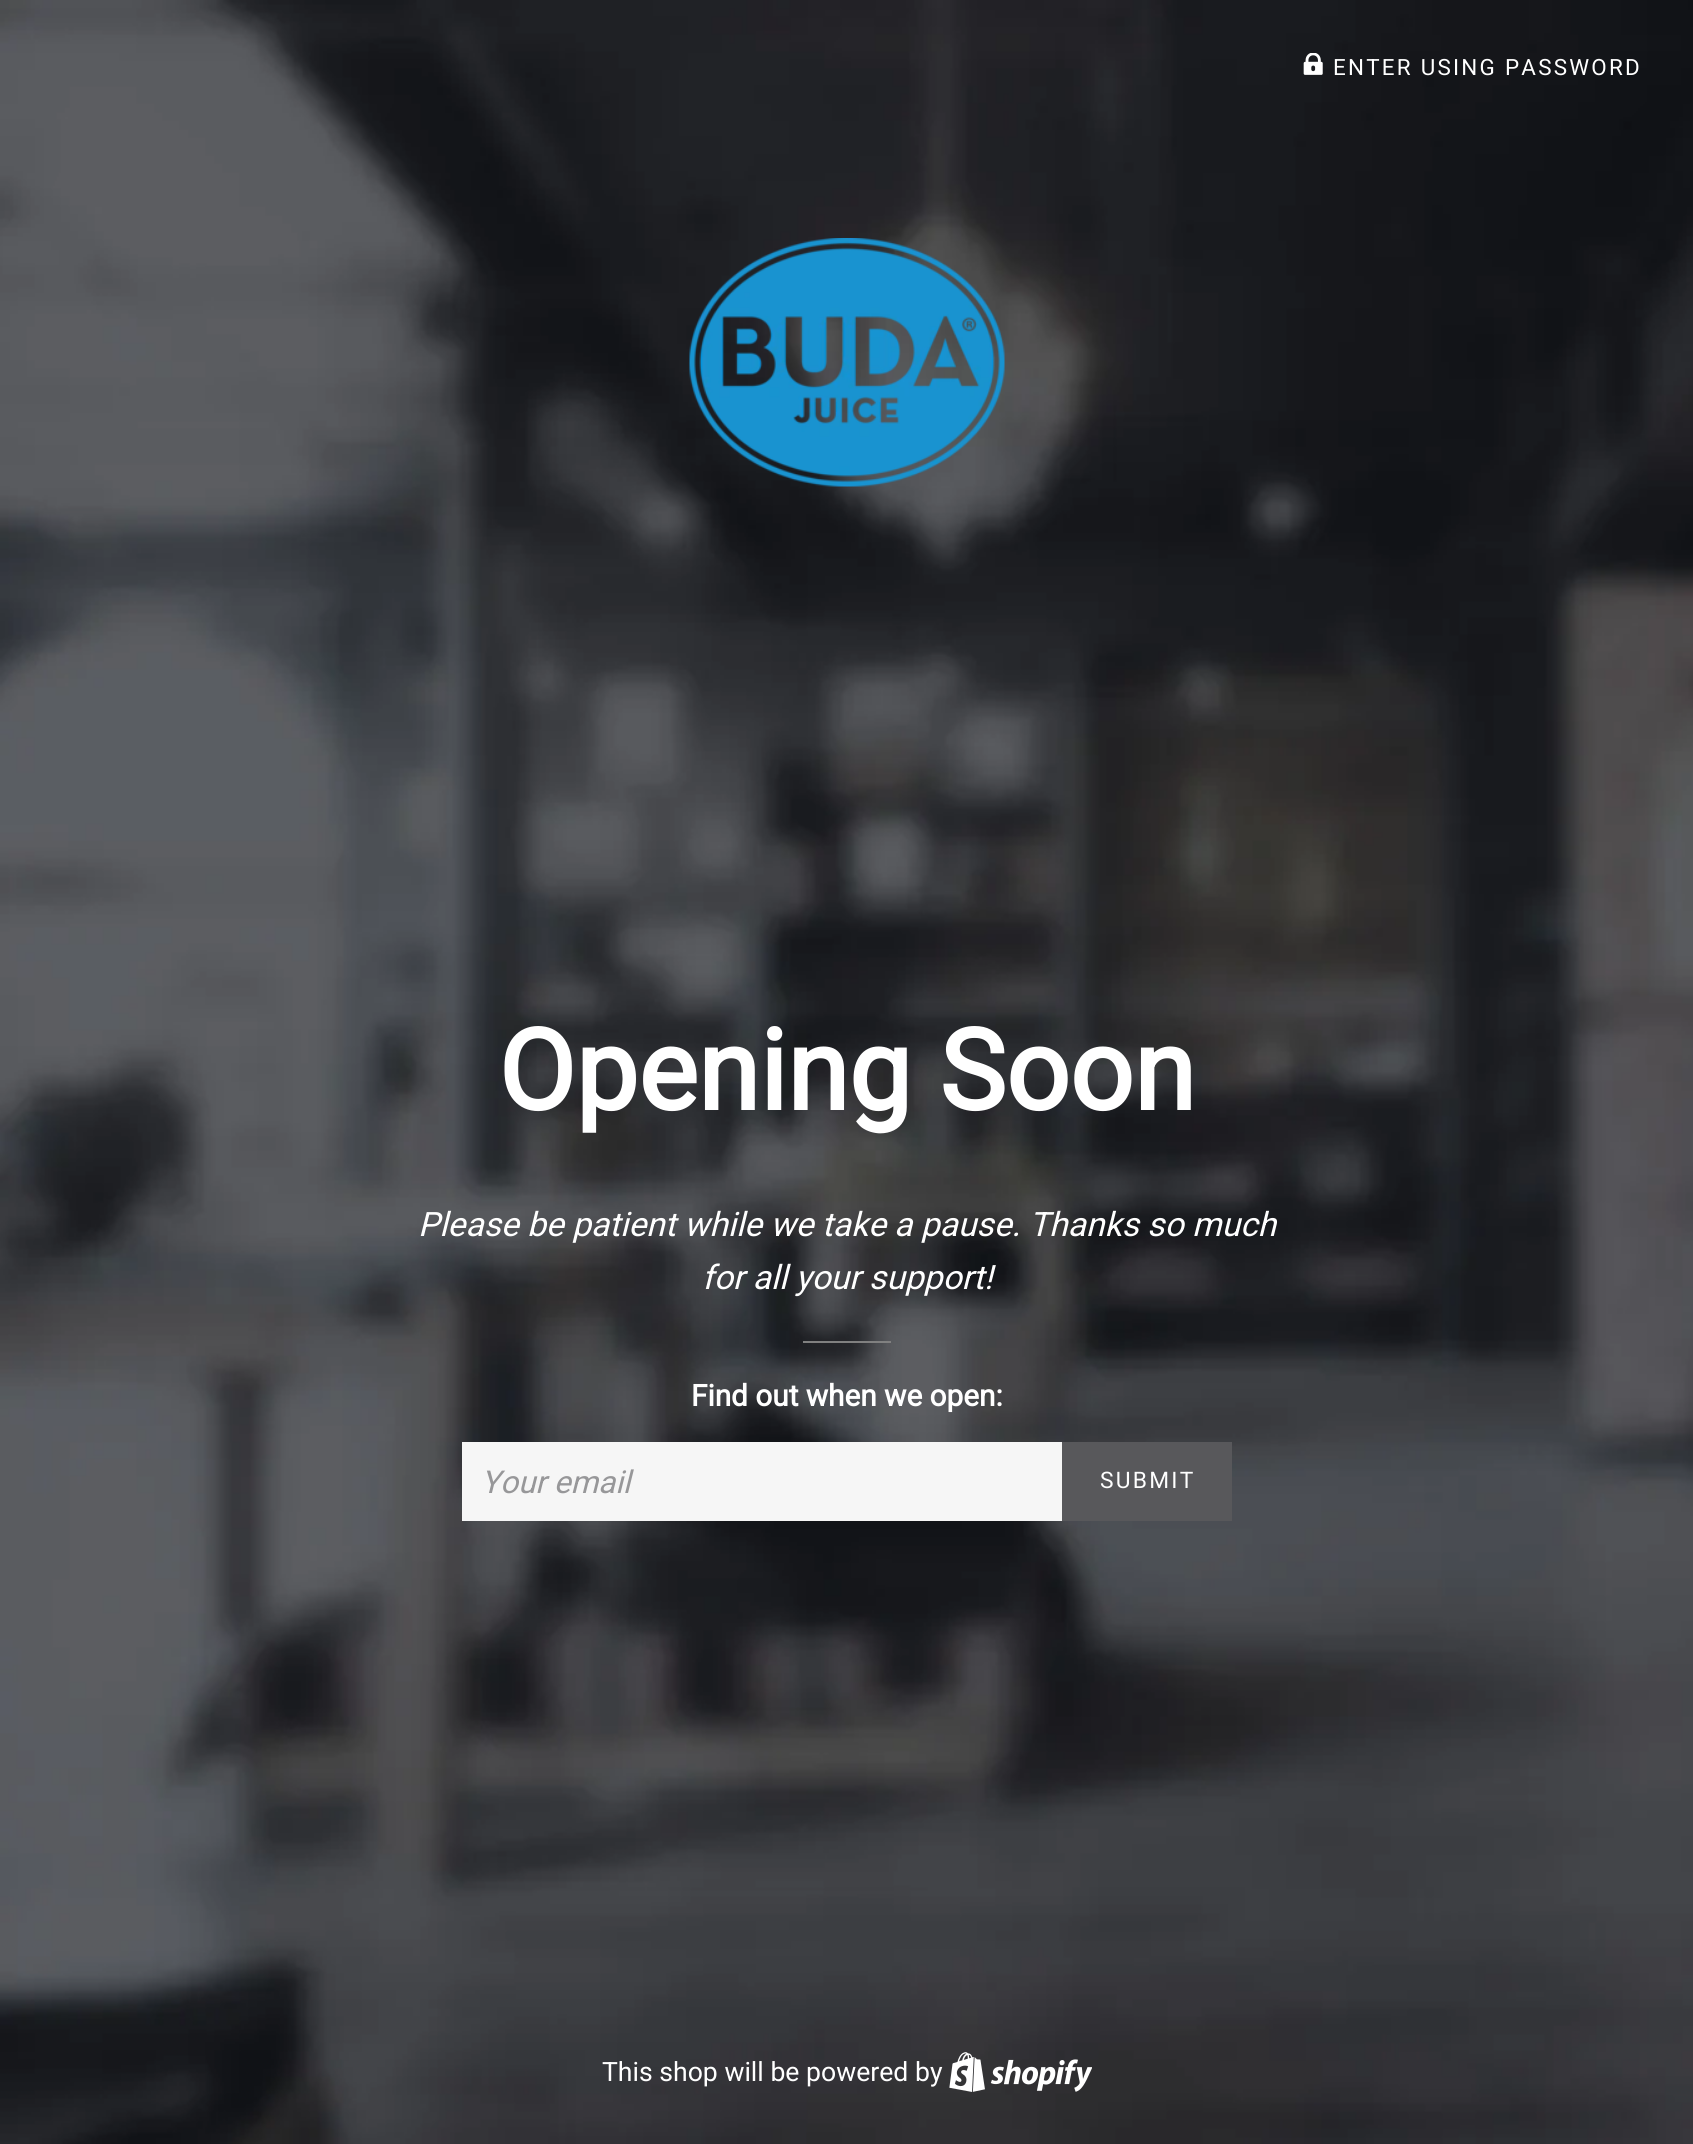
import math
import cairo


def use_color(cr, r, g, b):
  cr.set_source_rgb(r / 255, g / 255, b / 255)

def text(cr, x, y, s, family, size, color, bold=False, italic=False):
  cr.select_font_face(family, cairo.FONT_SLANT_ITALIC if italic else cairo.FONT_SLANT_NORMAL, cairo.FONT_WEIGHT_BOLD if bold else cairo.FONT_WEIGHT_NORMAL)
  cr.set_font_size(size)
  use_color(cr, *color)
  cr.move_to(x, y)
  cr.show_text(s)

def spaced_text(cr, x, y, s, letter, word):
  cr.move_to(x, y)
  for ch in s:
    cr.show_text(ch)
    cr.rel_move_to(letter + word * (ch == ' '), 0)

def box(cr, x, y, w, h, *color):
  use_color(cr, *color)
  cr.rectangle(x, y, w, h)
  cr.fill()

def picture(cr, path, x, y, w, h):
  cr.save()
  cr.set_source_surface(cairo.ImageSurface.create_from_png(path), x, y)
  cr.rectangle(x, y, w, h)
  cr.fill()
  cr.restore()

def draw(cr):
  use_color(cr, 255, 255, 255)
  cr.paint()
  picture(cr, "img_01.png", 0, 0, 1693, 2144)
  picture(cr, "img_02.png", 1303, 53, 20, 22)
  picture(cr, "img_03.png", 689, 238, 316, 249)
  box(cr, 803, 1341, 88, 2, 128, 128, 128)
  box(cr, 462, 1442, 600, 79, 246, 246, 246)
  box(cr, 1062, 1442, 170, 79, 88, 88, 91)
  picture(cr, "img_04.png", 949, 2052, 143, 40)
  cr.select_font_face("Roboto")
  cr.set_font_size(22.4)
  use_color(cr, 255, 255, 255)
  spaced_text(cr, 1333, 75, "ENTER USING PASSWORD", 2.25, 0)
  text(cr, 498, 1110, "Opening Soon", "Roboto", 112, (255, 255, 255), bold=True)
  text(cr, 418, 1236, "Please be patient while we take a pause.", "Roboto", 33.6, (255, 255, 255), italic=True)
  text(cr, 1029, 1236, "Thanks so much", "Roboto", 33.6, (255, 255, 255), italic=True)
  text(cr, 702, 1289, "for all your support!", "Roboto", 33.6, (255, 255, 255), italic=True)
  text(cr, 691, 1406, "Find out when we open:", "Roboto", 29.75, (255, 255, 255), bold=True)
  text(cr, 481, 1493, "Your email", "Roboto", 31.5, (151, 151, 153), italic=True)
  cr.select_font_face("Roboto")
  cr.set_font_size(22.75)
  use_color(cr, 255, 255, 255)
  spaced_text(cr, 1100, 1488, "SUBMIT", 2.25, 0)
  text(cr, 602, 2081, "This shop will be powered by", "Roboto", 26.6, (255, 255, 255))


surface = cairo.ImageSurface(cairo.FORMAT_RGB24, 1693, 2144)
cr = cairo.Context(surface)
options = cairo.FontOptions()
options.set_hint_metrics(cairo.HINT_METRICS_OFF)
options.set_hint_style(cairo.HINT_STYLE_NONE)
cr.set_font_options(options)
cr.set_miter_limit(4)
draw(cr)
surface.write_to_png("out.png")
